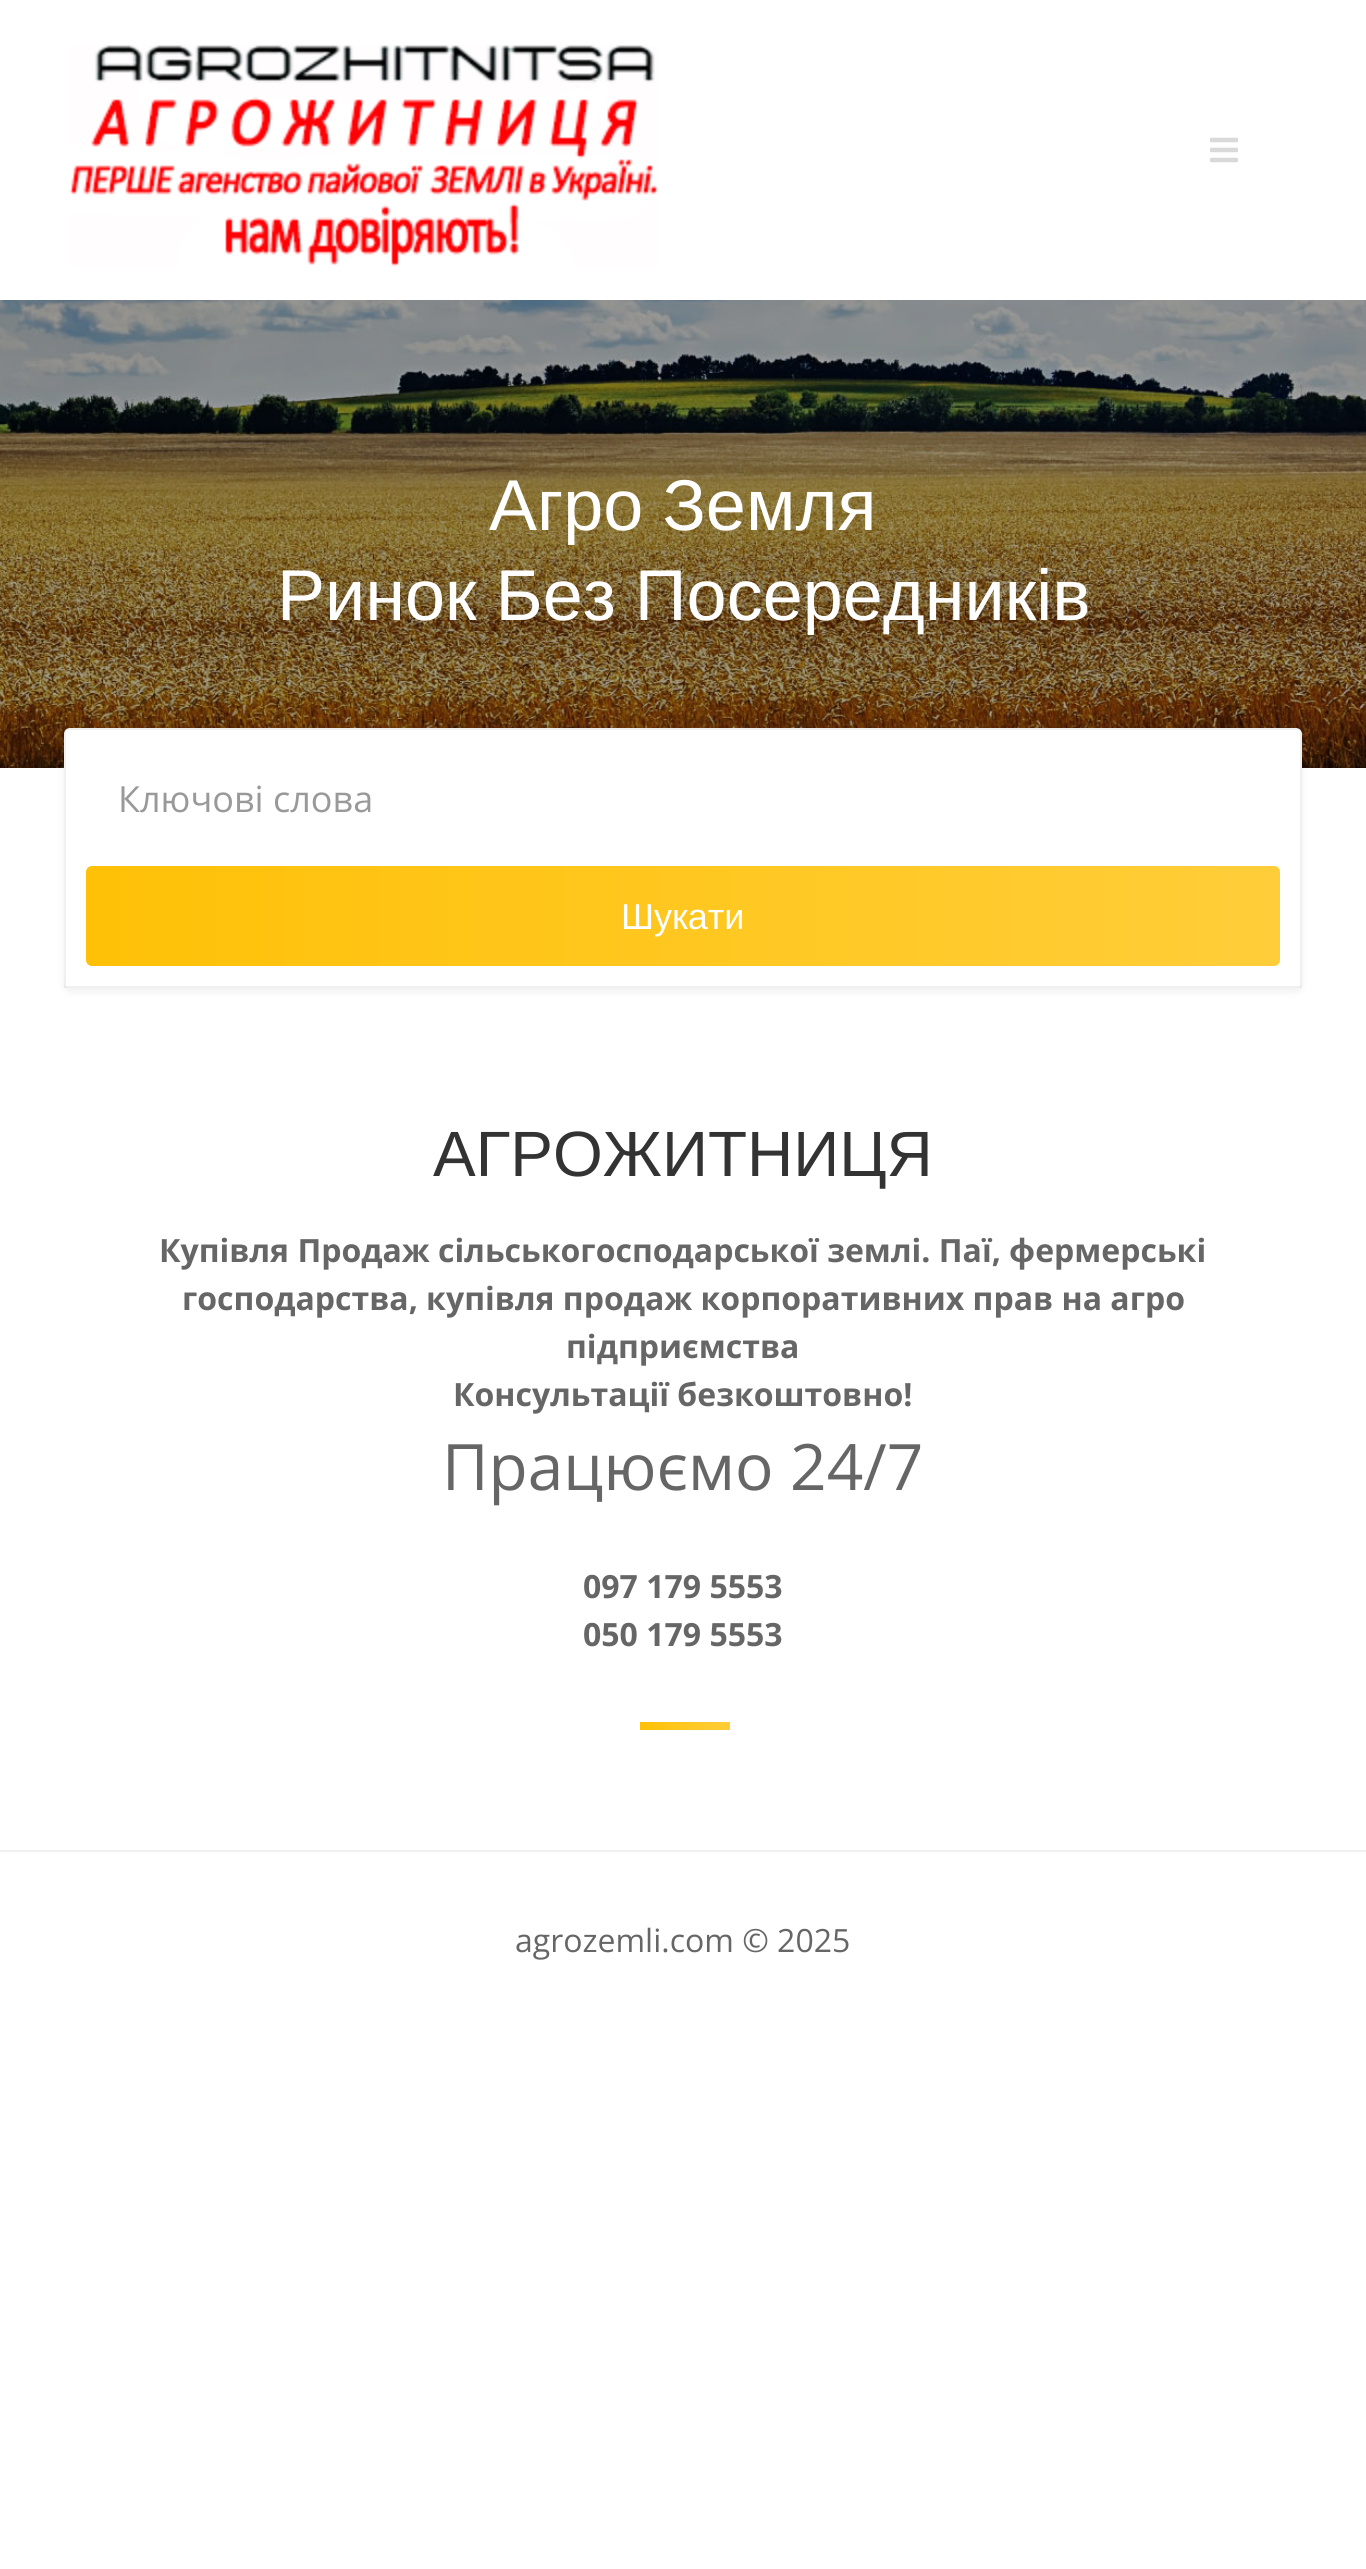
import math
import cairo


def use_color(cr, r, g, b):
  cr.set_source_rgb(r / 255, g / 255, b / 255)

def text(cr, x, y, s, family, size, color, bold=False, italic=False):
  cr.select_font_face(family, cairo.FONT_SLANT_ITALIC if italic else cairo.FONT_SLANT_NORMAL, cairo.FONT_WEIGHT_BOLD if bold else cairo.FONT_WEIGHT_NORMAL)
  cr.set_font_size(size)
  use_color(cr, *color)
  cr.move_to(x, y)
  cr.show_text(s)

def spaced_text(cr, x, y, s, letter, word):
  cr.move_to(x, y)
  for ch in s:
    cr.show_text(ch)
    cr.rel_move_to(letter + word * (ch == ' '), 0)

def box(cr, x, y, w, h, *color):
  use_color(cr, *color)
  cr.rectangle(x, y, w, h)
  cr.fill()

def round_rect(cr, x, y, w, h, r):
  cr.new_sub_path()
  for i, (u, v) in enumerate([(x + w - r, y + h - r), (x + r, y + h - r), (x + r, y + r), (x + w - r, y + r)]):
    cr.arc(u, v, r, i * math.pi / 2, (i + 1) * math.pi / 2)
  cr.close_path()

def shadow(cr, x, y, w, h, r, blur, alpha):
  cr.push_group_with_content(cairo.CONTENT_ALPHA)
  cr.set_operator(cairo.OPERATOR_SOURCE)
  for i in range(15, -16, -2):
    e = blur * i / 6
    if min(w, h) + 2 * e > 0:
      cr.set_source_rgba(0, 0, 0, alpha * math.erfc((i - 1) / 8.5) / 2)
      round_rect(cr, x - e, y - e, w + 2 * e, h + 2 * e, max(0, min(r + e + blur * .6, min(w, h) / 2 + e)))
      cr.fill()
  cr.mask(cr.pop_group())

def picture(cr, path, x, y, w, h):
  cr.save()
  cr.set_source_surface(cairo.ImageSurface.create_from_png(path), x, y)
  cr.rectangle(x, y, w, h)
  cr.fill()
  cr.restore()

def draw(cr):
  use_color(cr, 255, 255, 255)
  cr.paint()
  picture(cr, "img_01.png", 69, 45, 590, 222)
  picture(cr, "img_02.png", 1210, 137, 28, 26)
  picture(cr, "img_03.png", 0, 300, 1366, 468)
  use_color(cr, 0, 0, 0)
  shadow(cr, 64, 732, 1238, 260, 6, 4, 0.06)
  use_color(cr, 255, 255, 255)
  round_rect(cr, 64, 728, 1238, 260, 6)
  cr.fill()
  cr.rectangle(65, 729, 1236, 258)
  cr.set_source_rgba(0, 0, 0, 0.06)
  cr.stroke()
  use_color(cr, 255, 193, 7)
  round_rect(cr, 86, 866, 1194, 100, 6)
  cr.fill()
  gradient = cairo.LinearGradient(86, 916, 1280, 916)
  gradient.add_color_stop_rgba(0, 1, 1, 1, 0)
  gradient.add_color_stop_rgba(1, 1, 1, 1, 0.2)
  cr.set_source(gradient)
  round_rect(cr, 86, 866, 1194, 100, 6)
  cr.fill()
  gradient = cairo.LinearGradient(640, 1726, 730, 1726)
  gradient.add_color_stop_rgba(0, 1, 0.757, 0.027, 1)
  gradient.add_color_stop_rgba(1, 1, 0.804, 0.224, 1)
  cr.set_source(gradient)
  cr.rectangle(640, 1722, 90, 8)
  cr.fill()
  box(cr, 0, 1850, 1366, 2, 240, 240, 240)
  cr.select_font_face("Liberation Sans")
  cr.set_font_size(72)
  use_color(cr, 255, 255, 255)
  spaced_text(cr, 489, 530, "Агро Земля", 0, -1)
  spaced_text(cr, 277, 620, "Ринок Без Посередників", 0, -1)
  text(cr, 118, 812, "Ключові слова", "Open Sans", 36, (153, 153, 153))
  text(cr, 621, 929, "Шукати", "Liberation Sans", 36, (255, 255, 255))
  text(cr, 433, 1176, "АГРОЖИТНИЦЯ", "Liberation Sans", 64, (51, 51, 51))
  text(cr, 159, 1262, "Купівля Продаж сільськогосподарської землі. Паї, фермерські", "Open Sans", 32, (102, 102, 102), bold=True)
  text(cr, 182, 1310, "господарства, купівля продаж корпоративних прав на агро", "Open Sans", 32, (102, 102, 102), bold=True)
  text(cr, 566, 1358, "підприємства", "Open Sans", 32, (102, 102, 102), bold=True)
  text(cr, 453, 1406, "Консультації безкоштовно!", "Open Sans", 32, (102, 102, 102), bold=True)
  text(cr, 442, 1490, "Працюємо 24/7", "Open Sans", 64, (102, 102, 102))
  text(cr, 583, 1598, "097 179 5553", "Open Sans", 32, (102, 102, 102), bold=True)
  text(cr, 583, 1646, "050 179 5553", "Open Sans", 32, (102, 102, 102), bold=True)
  text(cr, 515, 1952, "agrozemli.com © 2025", "Open Sans", 32, (102, 102, 102))


surface = cairo.ImageSurface(cairo.FORMAT_RGB24, 1366, 2569)
cr = cairo.Context(surface)
options = cairo.FontOptions()
options.set_hint_metrics(cairo.HINT_METRICS_OFF)
options.set_hint_style(cairo.HINT_STYLE_NONE)
cr.set_font_options(options)
cr.set_miter_limit(4)
draw(cr)
surface.write_to_png("out.png")
